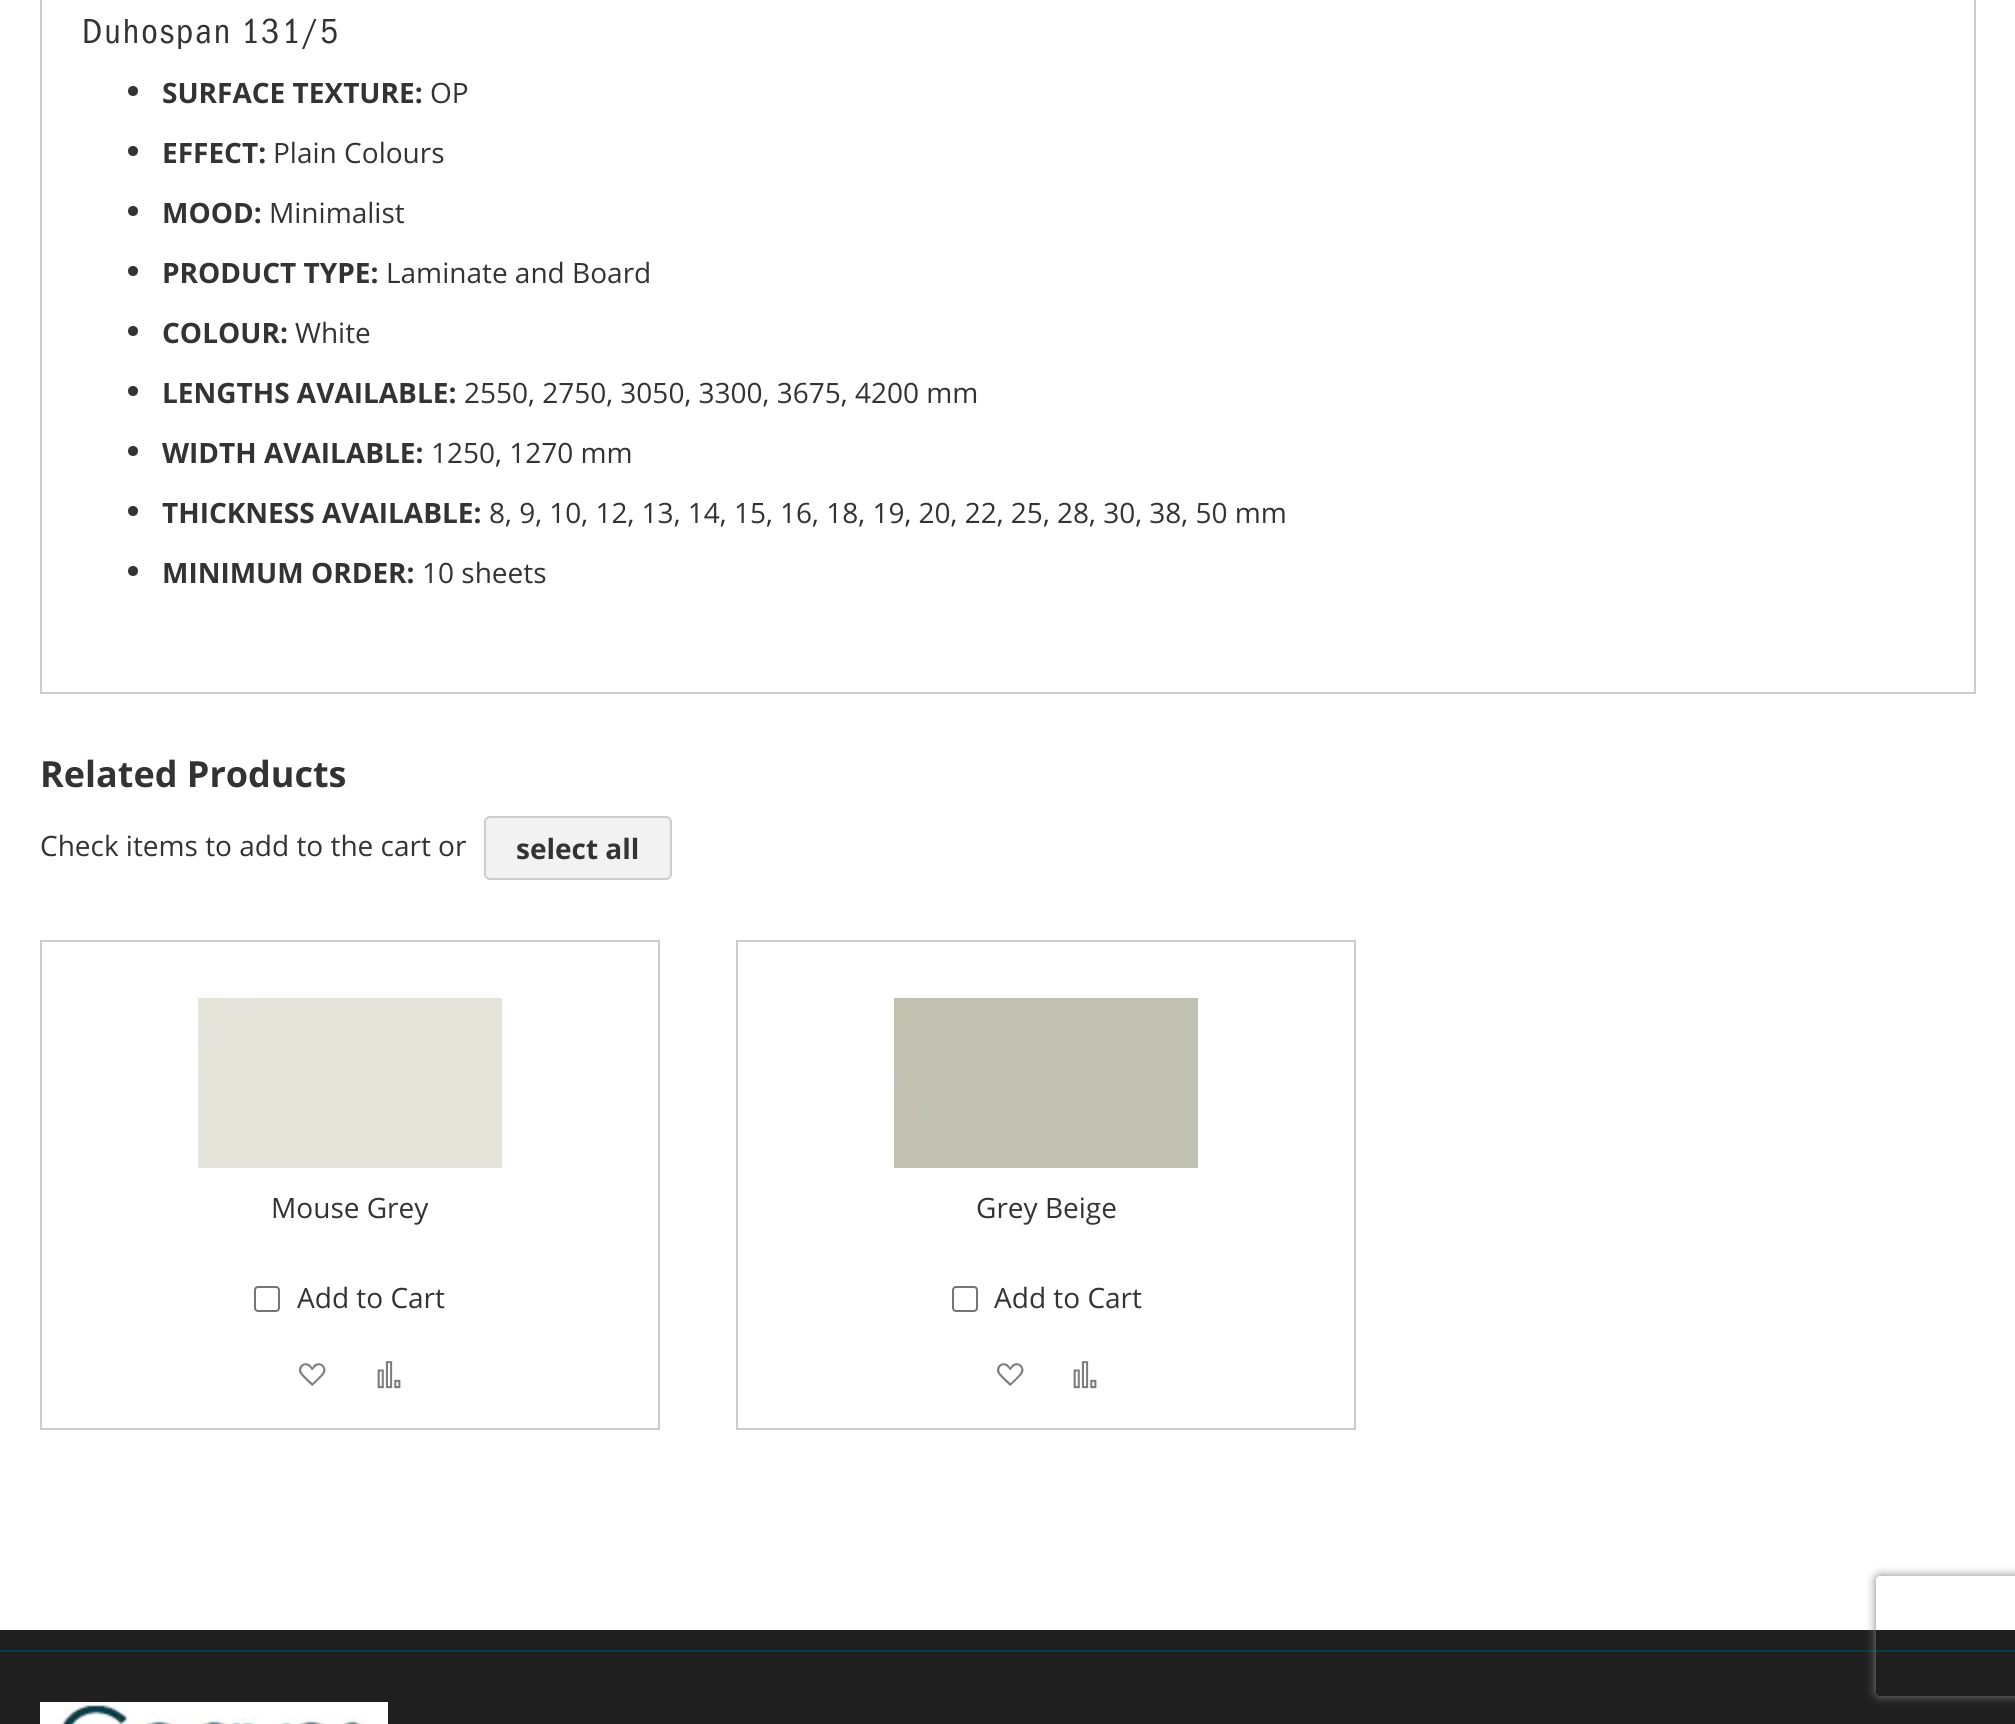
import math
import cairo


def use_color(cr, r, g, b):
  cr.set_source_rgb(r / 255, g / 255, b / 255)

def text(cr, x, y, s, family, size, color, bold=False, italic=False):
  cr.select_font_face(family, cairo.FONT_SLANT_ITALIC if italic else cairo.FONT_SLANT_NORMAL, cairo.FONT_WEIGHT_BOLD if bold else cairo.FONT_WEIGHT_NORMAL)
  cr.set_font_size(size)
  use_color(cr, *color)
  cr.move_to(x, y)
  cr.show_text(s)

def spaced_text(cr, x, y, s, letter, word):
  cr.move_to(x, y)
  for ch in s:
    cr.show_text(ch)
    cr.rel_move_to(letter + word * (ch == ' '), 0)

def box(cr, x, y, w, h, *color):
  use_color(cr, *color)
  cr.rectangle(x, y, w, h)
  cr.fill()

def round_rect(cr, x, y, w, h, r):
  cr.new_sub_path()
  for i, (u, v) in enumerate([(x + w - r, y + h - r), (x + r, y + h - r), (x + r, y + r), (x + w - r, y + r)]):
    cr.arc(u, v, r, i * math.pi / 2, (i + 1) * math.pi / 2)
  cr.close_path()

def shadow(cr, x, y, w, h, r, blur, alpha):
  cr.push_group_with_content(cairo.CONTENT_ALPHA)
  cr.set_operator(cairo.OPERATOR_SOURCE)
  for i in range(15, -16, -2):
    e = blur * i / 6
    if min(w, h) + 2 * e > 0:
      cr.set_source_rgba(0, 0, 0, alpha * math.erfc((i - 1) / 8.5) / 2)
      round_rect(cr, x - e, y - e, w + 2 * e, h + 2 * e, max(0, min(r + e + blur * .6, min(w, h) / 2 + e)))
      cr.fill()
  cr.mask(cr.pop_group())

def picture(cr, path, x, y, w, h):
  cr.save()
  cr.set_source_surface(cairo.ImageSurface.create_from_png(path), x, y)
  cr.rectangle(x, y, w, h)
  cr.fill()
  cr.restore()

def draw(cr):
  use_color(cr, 255, 255, 255)
  cr.paint()
  cr.rectangle(41, -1, 1934, 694)
  use_color(cr, 204, 204, 204)
  cr.stroke()
  use_color(cr, 51, 51, 51)
  cr.arc(133, 91, 5, 0, 2 * math.pi)
  cr.fill()
  cr.arc(133, 151, 5, 0, 2 * math.pi)
  cr.fill()
  cr.arc(133, 211, 5, 0, 2 * math.pi)
  cr.fill()
  cr.arc(133, 271, 5, 0, 2 * math.pi)
  cr.fill()
  cr.arc(133, 331, 5, 0, 2 * math.pi)
  cr.fill()
  cr.arc(133, 391, 5, 0, 2 * math.pi)
  cr.fill()
  cr.arc(133, 451, 5, 0, 2 * math.pi)
  cr.fill()
  cr.arc(133, 511, 5, 0, 2 * math.pi)
  cr.fill()
  cr.arc(133, 571, 5, 0, 2 * math.pi)
  cr.fill()
  use_color(cr, 242, 242, 242)
  round_rect(cr, 485, 817, 186, 62, 5)
  cr.fill_preserve()
  use_color(cr, 205, 205, 205)
  cr.stroke()
  cr.rectangle(41, 941, 618, 488)
  use_color(cr, 204, 204, 204)
  cr.stroke()
  picture(cr, "img_01.png", 198, 998, 304, 170)
  round_rect(cr, 255, 1287, 24, 24, 3)
  use_color(cr, 118, 118, 118)
  cr.stroke()
  picture(cr, "img_02.png", 299, 1363, 27, 23)
  picture(cr, "img_03.png", 377, 1361, 24, 28)
  cr.rectangle(737, 941, 618, 488)
  use_color(cr, 204, 204, 204)
  cr.stroke()
  picture(cr, "img_04.png", 894, 998, 304, 170)
  round_rect(cr, 953, 1287, 24, 24, 3)
  use_color(cr, 118, 118, 118)
  cr.stroke()
  picture(cr, "img_02.png", 997, 1363, 27, 23)
  picture(cr, "img_03.png", 1073, 1361, 24, 28)
  box(cr, 0, 1630, 2015, 94, 31, 31, 31)
  box(cr, 0, 1650, 2015, 2, 7, 60, 73)
  picture(cr, "img_05.png", 40, 1702, 348, 22)
  cr.save()
  cr.set_fill_rule(cairo.FILL_RULE_EVEN_ODD)
  cr.new_path()
  cr.move_to(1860, 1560)
  cr.line_to(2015, 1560)
  cr.line_to(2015, 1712)
  cr.line_to(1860, 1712)
  cr.close_path()
  cr.move_to(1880, 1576)
  cr.line_to(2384, 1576)
  cr.curve_to(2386, 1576, 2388, 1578, 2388, 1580)
  cr.line_to(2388, 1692)
  cr.curve_to(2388, 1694, 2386, 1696, 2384, 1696)
  cr.line_to(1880, 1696)
  cr.curve_to(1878, 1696, 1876, 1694, 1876, 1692)
  cr.line_to(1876, 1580)
  cr.curve_to(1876, 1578, 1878, 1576, 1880, 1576)
  cr.close_path()
  cr.clip()
  use_color(cr, 128, 128, 128)
  shadow(cr, 1876, 1576, 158, 120, 4, 5, 1)
  cr.restore()
  cr.select_font_face("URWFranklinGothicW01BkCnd")
  cr.set_font_size(36)
  use_color(cr, 51, 51, 51)
  spaced_text(cr, 82, 43, "Duhospan 131/5", 2, 0)
  text(cr, 162, 103, "SURFACE TEXTURE:", "Open Sans", 28, (51, 51, 51), bold=True)
  text(cr, 430, 103, "OP", "Open Sans", 28, (51, 51, 51))
  text(cr, 162, 163, "EFFECT:", "Open Sans", 28, (51, 51, 51), bold=True)
  text(cr, 273, 163, "Plain Colours", "Open Sans", 28, (51, 51, 51))
  text(cr, 162, 223, "MOOD:", "Open Sans", 28, (51, 51, 51), bold=True)
  text(cr, 269, 223, "Minimalist", "Open Sans", 28, (51, 51, 51))
  text(cr, 162, 283, "PRODUCT TYPE:", "Open Sans", 28, (51, 51, 51), bold=True)
  text(cr, 386, 283, "Laminate and Board", "Open Sans", 28, (51, 51, 51))
  text(cr, 162, 343, "COLOUR:", "Open Sans", 28, (51, 51, 51), bold=True)
  text(cr, 295, 343, "White", "Open Sans", 28, (51, 51, 51))
  text(cr, 162, 403, "LENGTHS AVAILABLE:", "Open Sans", 28, (51, 51, 51), bold=True)
  text(cr, 464, 403, "2550, 2750, 3050, 3300, 3675, 4200 mm", "Open Sans", 28, (51, 51, 51))
  text(cr, 162, 463, "WIDTH AVAILABLE:", "Open Sans", 28, (51, 51, 51), bold=True)
  text(cr, 431, 463, "1250, 1270 mm", "Open Sans", 28, (51, 51, 51))
  text(cr, 162, 523, "THICKNESS AVAILABLE:", "Open Sans", 28, (51, 51, 51), bold=True)
  text(cr, 489, 523, "8, 9, 10, 12, 13, 14, 15, 16, 18, 19, 20, 22, 25, 28, 30, 38, 50 mm", "Open Sans", 28, (51, 51, 51))
  text(cr, 162, 583, "MINIMUM ORDER:", "Open Sans", 28, (51, 51, 51), bold=True)
  text(cr, 422, 583, "10 sheets", "Open Sans", 28, (51, 51, 51))
  text(cr, 40, 787, "Related Products", "Open Sans", 36, (51, 51, 51), bold=True)
  text(cr, 40, 856, "Check items to add to the cart or", "Open Sans", 28, (51, 51, 51))
  text(cr, 516, 859, "select all", "Open Sans", 28, (51, 51, 51), bold=True)
  text(cr, 271, 1218, "Mouse Grey", "Open Sans", 28, (51, 51, 51))
  text(cr, 297, 1308, "Add to Cart", "Open Sans", 28, (51, 51, 51))
  text(cr, 976, 1218, "Grey Beige", "Open Sans", 28, (51, 51, 51))
  text(cr, 994, 1308, "Add to Cart", "Open Sans", 28, (51, 51, 51))


surface = cairo.ImageSurface(cairo.FORMAT_RGB24, 2015, 1724)
cr = cairo.Context(surface)
options = cairo.FontOptions()
options.set_hint_metrics(cairo.HINT_METRICS_OFF)
options.set_hint_style(cairo.HINT_STYLE_NONE)
cr.set_font_options(options)
cr.set_miter_limit(4)
draw(cr)
surface.write_to_png("out.png")
